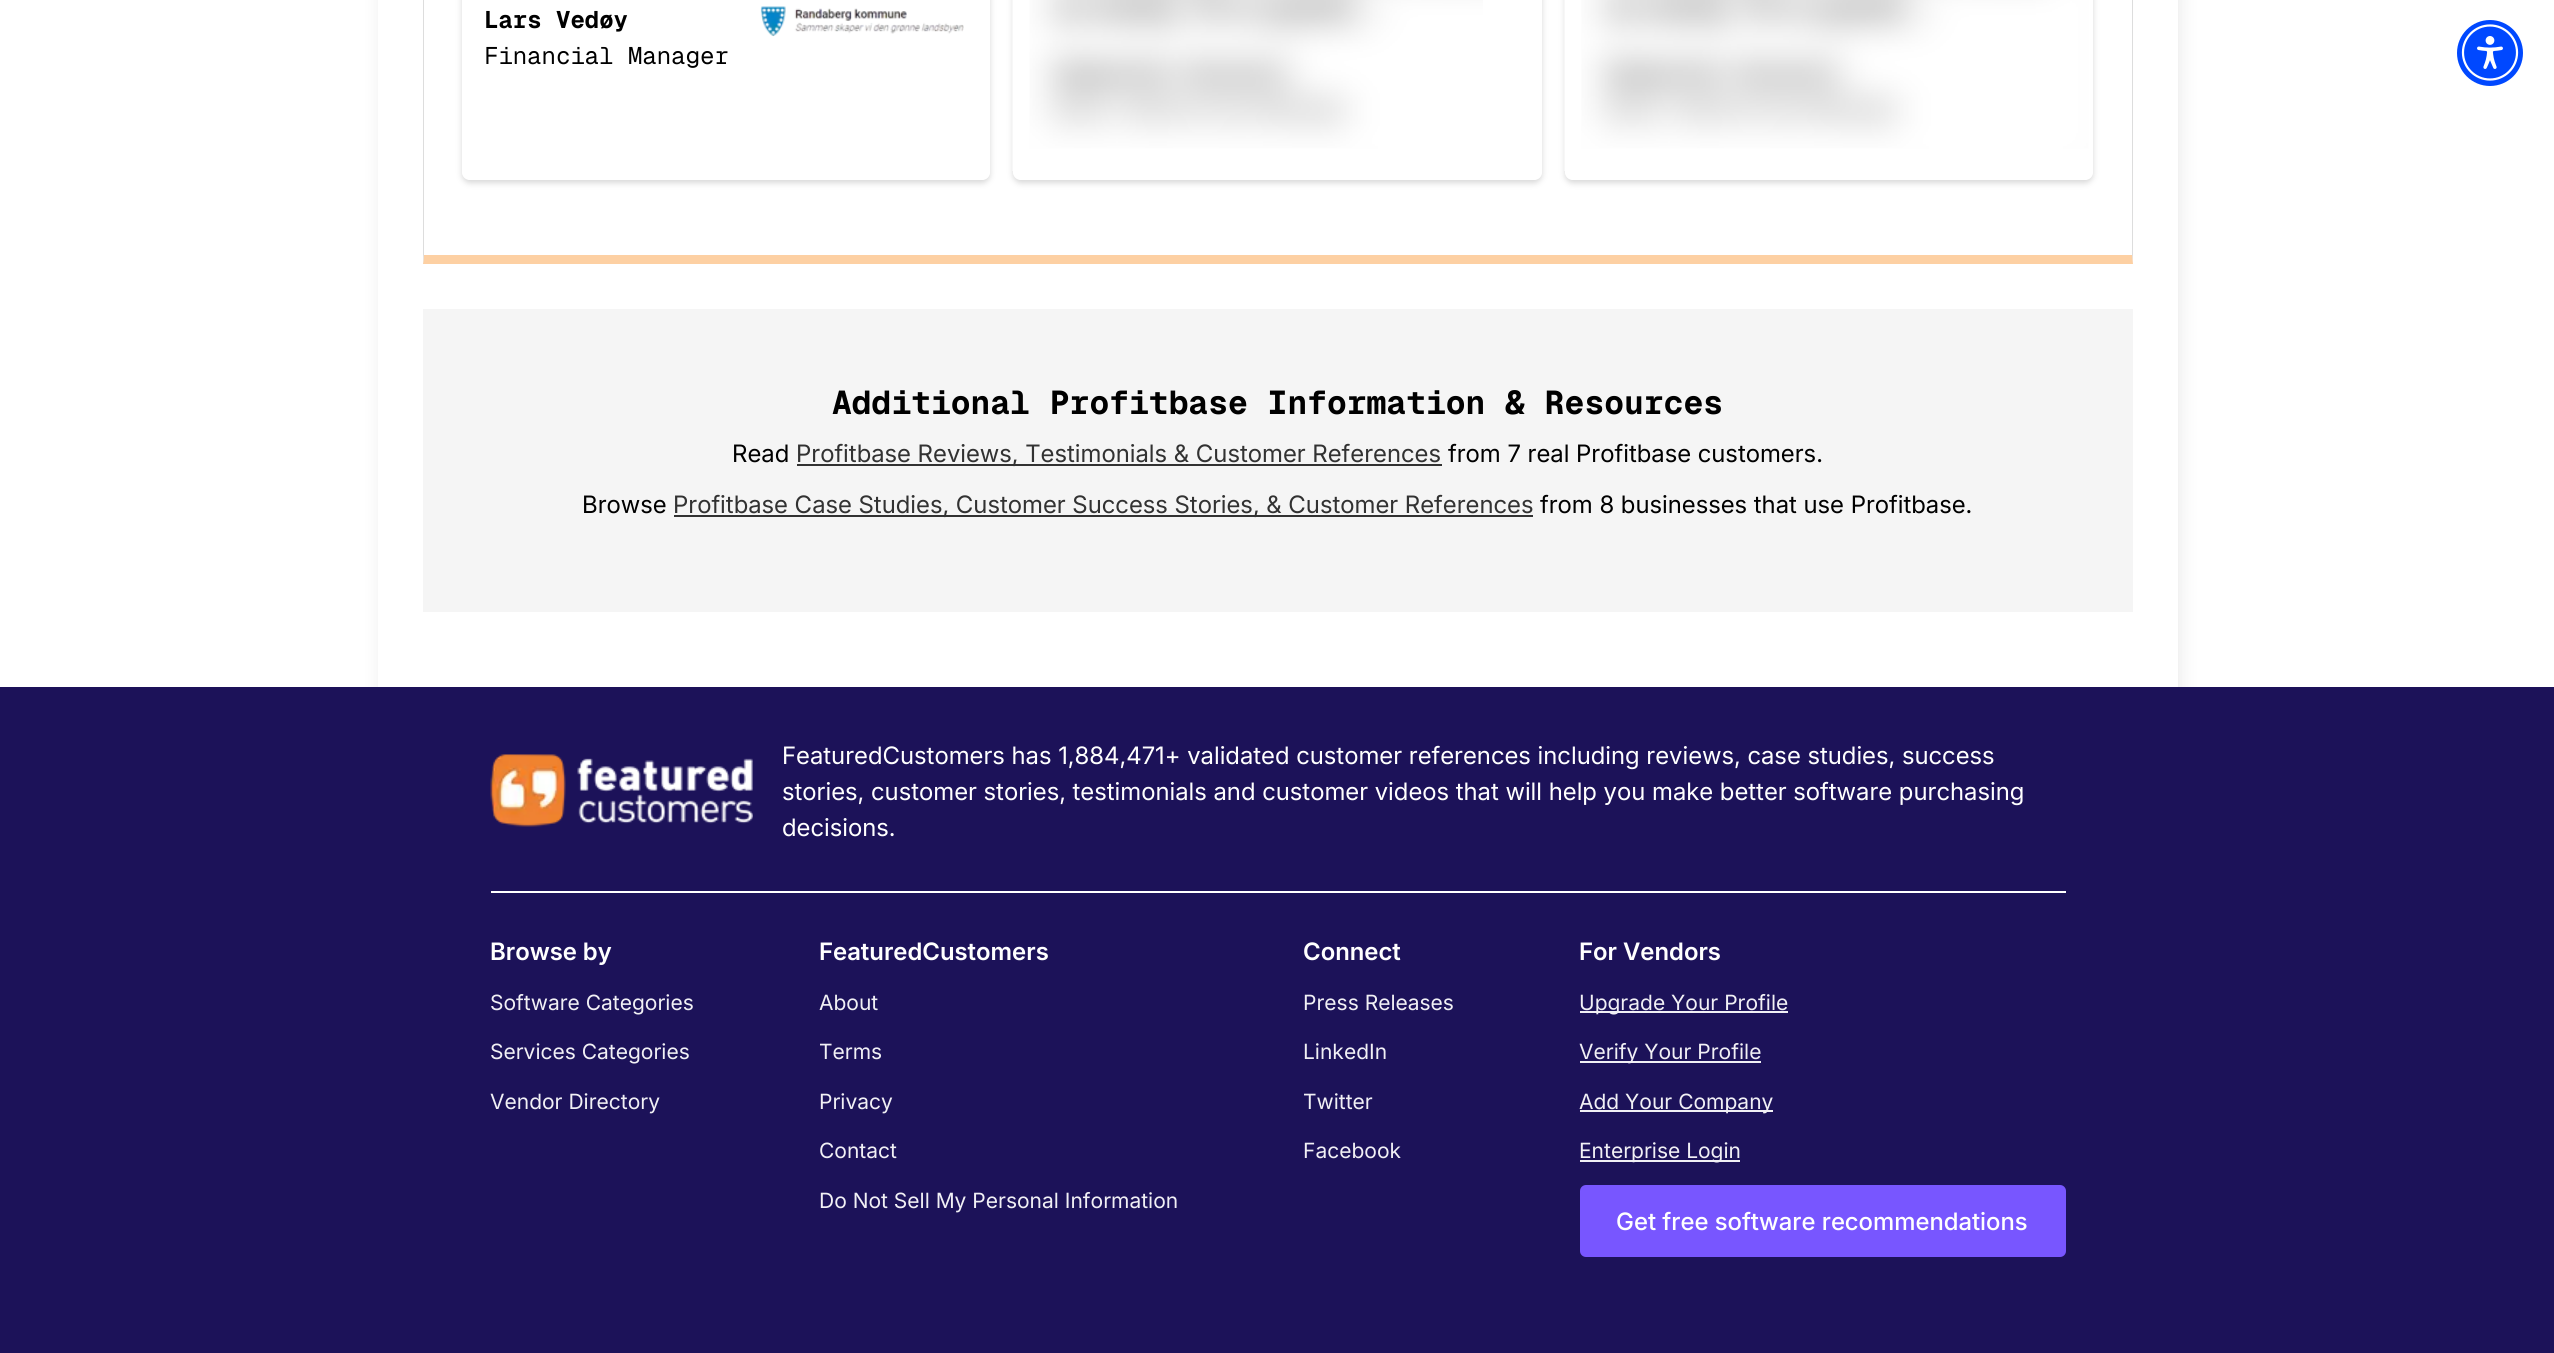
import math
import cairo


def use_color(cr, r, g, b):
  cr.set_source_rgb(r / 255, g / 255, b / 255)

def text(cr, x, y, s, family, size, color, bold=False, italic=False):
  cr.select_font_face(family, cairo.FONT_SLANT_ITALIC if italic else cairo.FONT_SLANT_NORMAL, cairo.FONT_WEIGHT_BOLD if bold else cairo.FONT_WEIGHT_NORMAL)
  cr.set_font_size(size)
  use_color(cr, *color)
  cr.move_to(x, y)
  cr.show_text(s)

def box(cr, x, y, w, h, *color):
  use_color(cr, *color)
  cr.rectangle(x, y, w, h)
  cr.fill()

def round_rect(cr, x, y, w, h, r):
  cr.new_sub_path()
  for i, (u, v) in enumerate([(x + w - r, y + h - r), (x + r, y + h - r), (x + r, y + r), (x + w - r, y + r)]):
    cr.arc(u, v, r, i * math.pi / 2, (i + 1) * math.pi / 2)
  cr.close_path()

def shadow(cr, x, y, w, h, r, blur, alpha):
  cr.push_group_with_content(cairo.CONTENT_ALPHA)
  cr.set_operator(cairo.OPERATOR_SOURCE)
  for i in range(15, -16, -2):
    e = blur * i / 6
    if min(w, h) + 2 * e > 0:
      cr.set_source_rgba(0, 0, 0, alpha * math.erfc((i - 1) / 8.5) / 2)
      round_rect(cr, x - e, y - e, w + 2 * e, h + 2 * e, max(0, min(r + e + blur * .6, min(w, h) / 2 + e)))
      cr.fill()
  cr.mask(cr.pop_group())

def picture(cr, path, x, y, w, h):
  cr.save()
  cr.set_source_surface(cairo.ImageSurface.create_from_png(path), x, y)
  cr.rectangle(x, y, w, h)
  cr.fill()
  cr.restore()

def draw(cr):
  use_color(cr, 255, 255, 255)
  cr.paint()
  cr.save()
  cr.set_fill_rule(cairo.FILL_RULE_EVEN_ODD)
  cr.new_path()
  cr.move_to(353, 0)
  cr.line_to(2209, 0)
  cr.line_to(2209, 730)
  cr.line_to(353, 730)
  cr.close_path()
  cr.move_to(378, -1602)
  cr.line_to(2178, -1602)
  cr.line_to(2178, 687)
  cr.line_to(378, 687)
  cr.close_path()
  cr.clip()
  use_color(cr, 50, 50, 50)
  shadow(cr, 381, -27, 1800, 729, 0, 9, 0.1)
  cr.restore()
  use_color(cr, 221, 221, 221)
  cr.new_path()
  cr.move_to(2133, -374)
  cr.line_to(2133, 264)
  cr.line_to(2132, 255)
  cr.line_to(2132, -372)
  cr.close_path()
  cr.fill()
  use_color(cr, 253, 208, 163)
  cr.new_path()
  cr.move_to(2133, 264)
  cr.line_to(423, 264)
  cr.line_to(424, 255)
  cr.line_to(2132, 255)
  cr.close_path()
  cr.fill()
  use_color(cr, 221, 221, 221)
  cr.new_path()
  cr.move_to(423, 264)
  cr.line_to(423, -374)
  cr.line_to(424, -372)
  cr.line_to(424, 255)
  cr.close_path()
  cr.fill()
  cr.save()
  cr.set_fill_rule(cairo.FILL_RULE_EVEN_ODD)
  cr.new_path()
  cr.move_to(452, 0)
  cr.line_to(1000, 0)
  cr.line_to(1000, 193)
  cr.line_to(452, 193)
  cr.close_path()
  cr.move_to(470, -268)
  cr.line_to(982, -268)
  cr.curve_to(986.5, -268, 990, -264.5, 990, -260)
  cr.line_to(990, 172)
  cr.curve_to(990, 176.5, 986.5, 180, 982, 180)
  cr.line_to(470, 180)
  cr.curve_to(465.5, 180, 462, 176.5, 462, 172)
  cr.line_to(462, -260)
  cr.curve_to(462, -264.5, 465.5, -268, 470, -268)
  cr.close_path()
  cr.clip()
  use_color(cr, 216, 216, 216)
  shadow(cr, 462, -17, 528, 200, 8, 3, 1)
  cr.restore()
  picture(cr, "img_01.png", 760, 6, 204, 31)
  cr.save()
  cr.set_fill_rule(cairo.FILL_RULE_EVEN_ODD)
  cr.new_path()
  cr.move_to(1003, 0)
  cr.line_to(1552, 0)
  cr.line_to(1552, 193)
  cr.line_to(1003, 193)
  cr.close_path()
  cr.move_to(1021, -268)
  cr.line_to(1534, -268)
  cr.curve_to(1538.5, -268, 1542, -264.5, 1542, -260)
  cr.line_to(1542, 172)
  cr.curve_to(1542, 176.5, 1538.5, 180, 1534, 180)
  cr.line_to(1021, 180)
  cr.curve_to(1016.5, 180, 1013, 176.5, 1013, 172)
  cr.line_to(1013, -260)
  cr.curve_to(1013, -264.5, 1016.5, -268, 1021, -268)
  cr.close_path()
  cr.clip()
  use_color(cr, 216, 216, 216)
  shadow(cr, 1013, -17, 529, 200, 8, 3, 1)
  cr.restore()
  picture(cr, "img_02.png", 1012, 0, 471, 171)
  cr.save()
  cr.set_fill_rule(cairo.FILL_RULE_EVEN_ODD)
  cr.new_path()
  cr.move_to(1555, 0)
  cr.line_to(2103, 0)
  cr.line_to(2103, 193)
  cr.line_to(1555, 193)
  cr.close_path()
  cr.move_to(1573, -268)
  cr.line_to(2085, -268)
  cr.curve_to(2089.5, -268, 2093, -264.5, 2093, -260)
  cr.line_to(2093, 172)
  cr.curve_to(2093, 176.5, 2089.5, 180, 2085, 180)
  cr.line_to(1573, 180)
  cr.curve_to(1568.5, 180, 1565, 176.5, 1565, 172)
  cr.line_to(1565, -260)
  cr.curve_to(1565, -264.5, 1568.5, -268, 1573, -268)
  cr.close_path()
  cr.clip()
  use_color(cr, 216, 216, 216)
  shadow(cr, 1565, -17, 528, 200, 8, 3, 1)
  cr.restore()
  picture(cr, "img_03.png", 1564, 0, 529, 171)
  box(cr, 423, 309, 1710, 303, 245, 245, 245)
  box(cr, 797, 464, 645, 2, 50, 50, 50)
  box(cr, 674, 515, 859, 2, 50, 50, 50)
  box(cr, 0, 687, 2554, 666, 28, 18, 89)
  box(cr, 491, 891, 1575, 2, 255, 255, 255)
  picture(cr, "img_04.png", 490, 754, 263, 73)
  box(cr, 1580, 1011, 208, 2, 241, 240, 245)
  box(cr, 1580, 1061, 181, 2, 241, 240, 245)
  box(cr, 1580, 1110, 193, 2, 241, 240, 245)
  box(cr, 1580, 1160, 160, 2, 241, 240, 245)
  use_color(cr, 120, 86, 255)
  round_rect(cr, 1580, 1185, 486, 72, 6)
  cr.fill()
  use_color(cr, 0, 72, 255)
  cr.arc(2490, 53, 33, 0, 2 * math.pi)
  cr.fill()
  picture(cr, "img_05.png", 2461, 24, 58, 57)
  text(cr, 484, 28, "Lars Vedøy", "Geist Mono", 24, (0, 0, 0), bold=True)
  text(cr, 484, 64, "Financial Manager", "Geist Mono", 24, (0, 0, 0))
  text(cr, 832, 414, "Additional Profitbase Information & Resources", "Geist Mono", 33, (0, 0, 0), bold=True)
  text(cr, 732, 462, "Read", "Inter", 24, (0, 0, 0))
  text(cr, 796, 462, "Profitbase Reviews, Testimonials & Customer References", "Inter", 24, (50, 50, 50))
  text(cr, 1448, 462, "from 7 real Profitbase customers.", "Inter", 24, (0, 0, 0))
  text(cr, 582, 513, "Browse", "Inter", 24, (0, 0, 0))
  text(cr, 673, 513, "Profitbase Case Studies, Customer Success Stories, & Customer References", "Inter", 24, (50, 50, 50))
  text(cr, 1540, 513, "from 8 businesses that use Profitbase.", "Inter", 24, (0, 0, 0))
  text(cr, 782, 764, "FeaturedCustomers has 1,884,471+ validated customer references including reviews, case studies, success", "Inter", 24, (255, 255, 255))
  text(cr, 782, 800, "stories, customer stories, testimonials and customer videos that will help you make better software purchasing", "Inter", 24, (255, 255, 255))
  text(cr, 782, 836, "decisions.", "Inter", 24, (255, 255, 255))
  text(cr, 490, 960, "Browse by", "Inter SemiBold", 24, (255, 255, 255))
  text(cr, 490, 1010, "Software Categories", "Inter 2", 21, (241, 240, 245))
  text(cr, 490, 1059, "Services Categories", "Inter 2", 21, (241, 240, 245))
  text(cr, 490, 1109, "Vendor Directory", "Inter 2", 21, (241, 240, 245))
  text(cr, 819, 960, "FeaturedCustomers", "Inter SemiBold", 24, (255, 255, 255))
  text(cr, 819, 1010, "About", "Inter 2", 21, (241, 240, 245))
  text(cr, 819, 1059, "Terms", "Inter 2", 21, (241, 240, 245))
  text(cr, 819, 1109, "Privacy", "Inter 2", 21, (241, 240, 245))
  text(cr, 819, 1158, "Contact", "Inter 2", 21, (241, 240, 245))
  text(cr, 819, 1208, "Do Not Sell My Personal Information", "Inter 2", 21, (241, 240, 245))
  text(cr, 1303, 960, "Connect", "Inter SemiBold", 24, (255, 255, 255))
  text(cr, 1303, 1010, "Press Releases", "Inter 2", 21, (241, 240, 245))
  text(cr, 1303, 1059, "LinkedIn", "Inter 2", 21, (241, 240, 245))
  text(cr, 1303, 1109, "Twitter", "Inter 2", 21, (241, 240, 245))
  text(cr, 1303, 1158, "Facebook", "Inter 2", 21, (241, 240, 245))
  text(cr, 1579, 960, "For Vendors", "Inter SemiBold", 24, (255, 255, 255))
  text(cr, 1579, 1010, "Upgrade Your Profile", "Inter 2", 21, (241, 240, 245))
  text(cr, 1579, 1059, "Verify Your Profile", "Inter 2", 21, (241, 240, 245))
  text(cr, 1579, 1109, "Add Your Company", "Inter 2", 21, (241, 240, 245))
  text(cr, 1579, 1158, "Enterprise Login", "Inter 2", 21, (241, 240, 245))
  text(cr, 1616, 1230, "Get free software recommendations", "Inter Medium", 24, (255, 255, 255))


surface = cairo.ImageSurface(cairo.FORMAT_RGB24, 2554, 1353)
cr = cairo.Context(surface)
options = cairo.FontOptions()
options.set_hint_metrics(cairo.HINT_METRICS_OFF)
options.set_hint_style(cairo.HINT_STYLE_NONE)
cr.set_font_options(options)
cr.set_miter_limit(4)
draw(cr)
surface.write_to_png("out.png")
